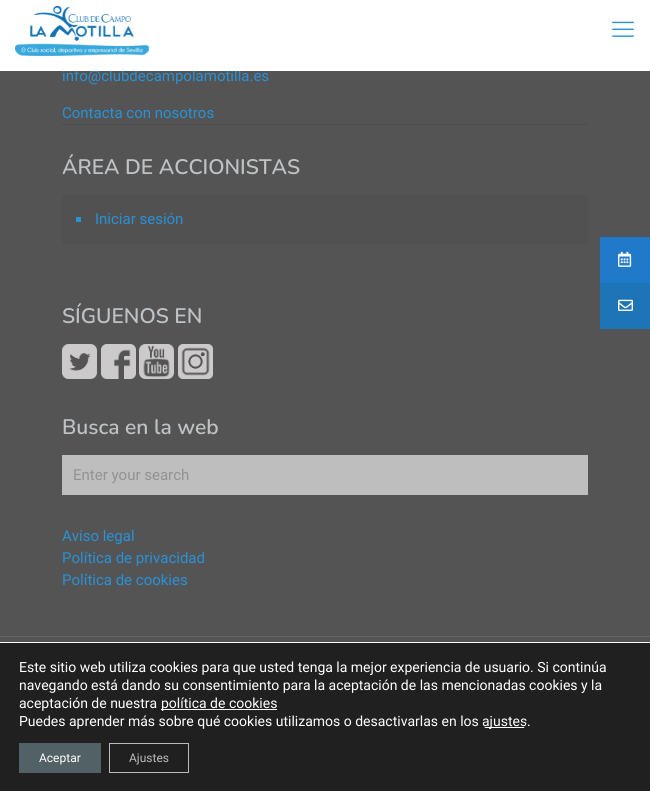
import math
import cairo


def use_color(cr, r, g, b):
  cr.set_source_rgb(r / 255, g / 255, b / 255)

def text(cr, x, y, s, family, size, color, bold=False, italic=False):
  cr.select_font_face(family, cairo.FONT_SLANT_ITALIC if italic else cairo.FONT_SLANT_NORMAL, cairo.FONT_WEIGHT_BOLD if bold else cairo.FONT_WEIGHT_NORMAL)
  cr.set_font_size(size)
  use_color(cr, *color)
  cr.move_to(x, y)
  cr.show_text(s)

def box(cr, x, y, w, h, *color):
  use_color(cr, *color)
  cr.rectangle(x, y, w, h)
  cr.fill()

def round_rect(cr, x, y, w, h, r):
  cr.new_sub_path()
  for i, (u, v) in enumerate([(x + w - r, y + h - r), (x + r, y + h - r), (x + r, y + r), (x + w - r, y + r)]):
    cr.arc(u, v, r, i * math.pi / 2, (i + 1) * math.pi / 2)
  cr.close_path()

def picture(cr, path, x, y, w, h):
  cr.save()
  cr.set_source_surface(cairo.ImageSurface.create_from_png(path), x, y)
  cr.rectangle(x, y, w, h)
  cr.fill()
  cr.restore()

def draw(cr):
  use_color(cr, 84, 84, 84)
  cr.paint()
  box(cr, 62, 124, 526, 1, 77, 77, 77)
  box(cr, 62, 195, 526, 49, 81, 81, 81)
  box(cr, 76, 217, 5, 5, 41, 145, 214)
  picture(cr, "img_03.png", 62, 344, 35, 35)
  picture(cr, "img_04.png", 101, 344, 35, 35)
  picture(cr, "img_05.png", 139, 344, 35, 35)
  picture(cr, "img_06.png", 178, 344, 35, 35)
  box(cr, 62, 455, 526, 40, 190, 190, 190)
  box(cr, 0, 636, 650, 1, 101, 101, 101)
  box(cr, 600, 237, 50, 46, 32, 122, 201)
  picture(cr, "img_07.png", 618, 251, 14, 16)
  box(cr, 600, 283, 50, 46, 29, 116, 183)
  picture(cr, "img_08.png", 618, 299, 15, 12)
  box(cr, 0, 643, 650, 148, 32, 32, 32)
  box(cr, 0, 642, 650, 1, 255, 255, 255)
  box(cr, 161, 709, 116, 1, 255, 255, 255)
  cr.save()
  round_rect(cr, 482, 712, 45, 18, 9)
  cr.clip()
  box(cr, 482, 727, 45, 1, 255, 255, 255)
  cr.restore()
  box(cr, 19, 743, 82, 30, 81, 97, 101)
  cr.rectangle(109.5, 743.5, 79, 29)
  use_color(cr, 188, 188, 188)
  cr.set_line_width(1)
  cr.stroke()
  text(cr, 62, 81, "info@clubdecampolamotilla.es", "Roboto", 15, (41, 145, 214))
  box(cr, 0, 0, 650, 71, 255, 255, 255)
  picture(cr, "img_02.png", 612, 21, 22, 16)
  picture(cr, "img_01.png", 15, 6, 134, 50)
  text(cr, 62, 118, "Contacta con nosotros", "Roboto", 15, (41, 145, 214))
  text(cr, 62, 174, "ÁREA DE ACCIONISTAS", "Nunito SemiBold", 21, (190, 194, 196))
  text(cr, 95, 224, "Iniciar sesión", "Roboto", 15, (41, 145, 214))
  text(cr, 62, 323, "SÍGUENOS EN", "Nunito SemiBold", 21, (190, 194, 196))
  text(cr, 62, 434, "Busca en la web", "Nunito SemiBold", 21, (190, 194, 196))
  text(cr, 73, 480, "Enter your search", "Roboto", 15, (146, 146, 146))
  text(cr, 62, 541, "Aviso legal", "Roboto", 15, (41, 145, 214))
  text(cr, 62, 563, "Política de privacidad", "Roboto", 15, (41, 145, 214))
  text(cr, 62, 585, "Política de cookies", "Roboto", 15, (41, 145, 214))
  text(cr, 19, 672, "Este sitio web utiliza cookies para que usted tenga la mejor experiencia de usuario. Si continúa", "Roboto", 14, (255, 255, 255))
  text(cr, 19, 690, "navegando está dando su consentimiento para la aceptación de las mencionadas cookies y la", "Roboto", 14, (255, 255, 255))
  text(cr, 19, 708, "aceptación de nuestra", "Roboto", 14, (255, 255, 255))
  text(cr, 161, 708, "política de cookies", "Roboto", 14, (255, 255, 255))
  text(cr, 19, 726, "Puedes aprender más sobre qué cookies utilizamos o desactivarlas en los", "Roboto", 14, (255, 255, 255))
  cr.save()
  round_rect(cr, 482, 712, 45, 18, 9)
  cr.clip()
  text(cr, 482, 726, "ajustes", "Roboto", 14, (255, 255, 255))
  cr.restore()
  text(cr, 527, 726, ".", "Roboto", 14, (255, 255, 255))
  text(cr, 39, 762, "Aceptar", "Roboto", 12, (255, 255, 255))
  text(cr, 129, 762, "Ajustes", "Roboto", 12, (188, 188, 188))


surface = cairo.ImageSurface(cairo.FORMAT_RGB24, 650, 791)
cr = cairo.Context(surface)
options = cairo.FontOptions()
options.set_hint_metrics(cairo.HINT_METRICS_OFF)
options.set_hint_style(cairo.HINT_STYLE_NONE)
cr.set_font_options(options)
cr.set_miter_limit(4)
draw(cr)
surface.write_to_png("out.png")
